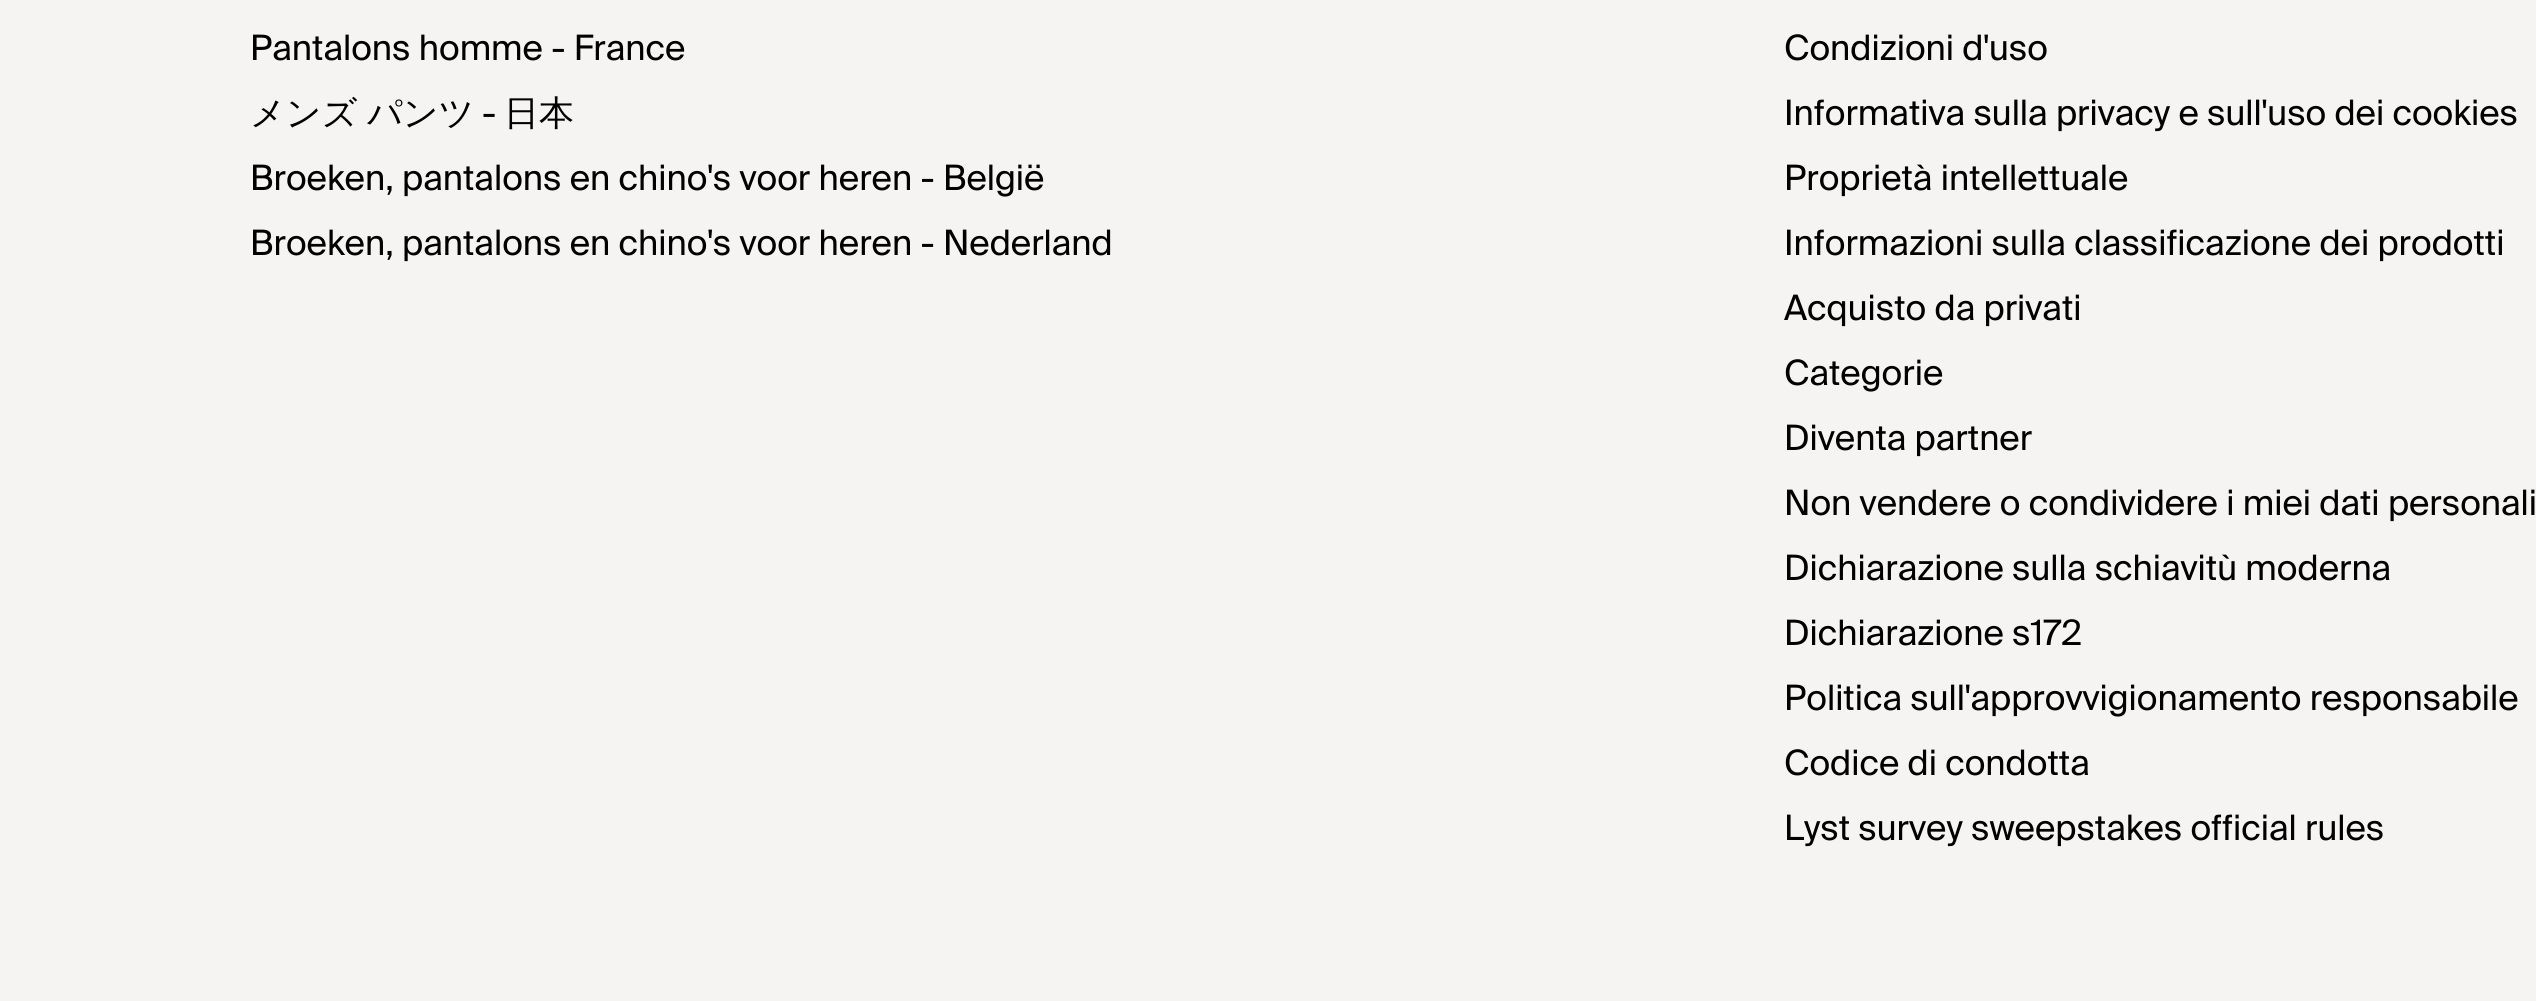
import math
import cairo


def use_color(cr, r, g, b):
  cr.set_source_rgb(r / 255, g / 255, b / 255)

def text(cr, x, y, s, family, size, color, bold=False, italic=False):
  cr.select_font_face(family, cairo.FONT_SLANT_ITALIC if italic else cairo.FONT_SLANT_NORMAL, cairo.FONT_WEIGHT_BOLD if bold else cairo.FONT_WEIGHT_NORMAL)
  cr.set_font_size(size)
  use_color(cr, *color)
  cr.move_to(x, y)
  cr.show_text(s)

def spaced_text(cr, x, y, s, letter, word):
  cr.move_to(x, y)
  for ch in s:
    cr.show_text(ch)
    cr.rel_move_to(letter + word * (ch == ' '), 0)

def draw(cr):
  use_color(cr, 245, 244, 242)
  cr.paint()
  text(cr, 250, 60, "Pantalons homme - France", "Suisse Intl", 35, (0, 0, 0))
  cr.select_font_face("WenQuanYi Zen Hei Medium")
  spaced_text(cr, 250, 125, "メンズ パンツ", 0, -1)
  text(cr, 482, 125, "-", "Suisse Intl", 35, (0, 0, 0))
  text(cr, 504, 125, "日本", "WenQuanYi Zen Hei Medium", 35, (0, 0, 0))
  text(cr, 250, 190, "Broeken, pantalons en chino's voor heren - België", "Suisse Intl", 35, (0, 0, 0))
  text(cr, 250, 255, "Broeken, pantalons en chino's voor heren - Nederland", "Suisse Intl", 35, (0, 0, 0))
  text(cr, 1784, 60, "Condizioni d'uso", "Suisse Intl", 35, (0, 0, 0))
  text(cr, 1784, 125, "Informativa sulla privacy e sull'uso dei cookies", "Suisse Intl", 35, (0, 0, 0))
  text(cr, 1784, 190, "Proprietà intellettuale", "Suisse Intl", 35, (0, 0, 0))
  text(cr, 1784, 255, "Informazioni sulla classificazione dei prodotti", "Suisse Intl", 35, (0, 0, 0))
  text(cr, 1784, 320, "Acquisto da privati", "Suisse Intl", 35, (0, 0, 0))
  text(cr, 1784, 385, "Categorie", "Suisse Intl", 35, (0, 0, 0))
  text(cr, 1784, 450, "Diventa partner", "Suisse Intl", 35, (0, 0, 0))
  text(cr, 1784, 515, "Non vendere o condividere i miei dati personali", "Suisse Intl", 35, (0, 0, 0))
  text(cr, 1784, 580, "Dichiarazione sulla schiavitù moderna", "Suisse Intl", 35, (0, 0, 0))
  text(cr, 1784, 645, "Dichiarazione s172", "Suisse Intl", 35, (0, 0, 0))
  text(cr, 1784, 710, "Politica sull'approvvigionamento responsabile", "Suisse Intl", 35, (0, 0, 0))
  text(cr, 1784, 775, "Codice di condotta", "Suisse Intl", 35, (0, 0, 0))
  text(cr, 1784, 840, "Lyst survey sweepstakes official rules", "Suisse Intl", 35, (0, 0, 0))


surface = cairo.ImageSurface(cairo.FORMAT_RGB24, 2536, 1001)
cr = cairo.Context(surface)
options = cairo.FontOptions()
options.set_hint_metrics(cairo.HINT_METRICS_OFF)
options.set_hint_style(cairo.HINT_STYLE_NONE)
cr.set_font_options(options)
cr.set_miter_limit(4)
draw(cr)
surface.write_to_png("out.png")
